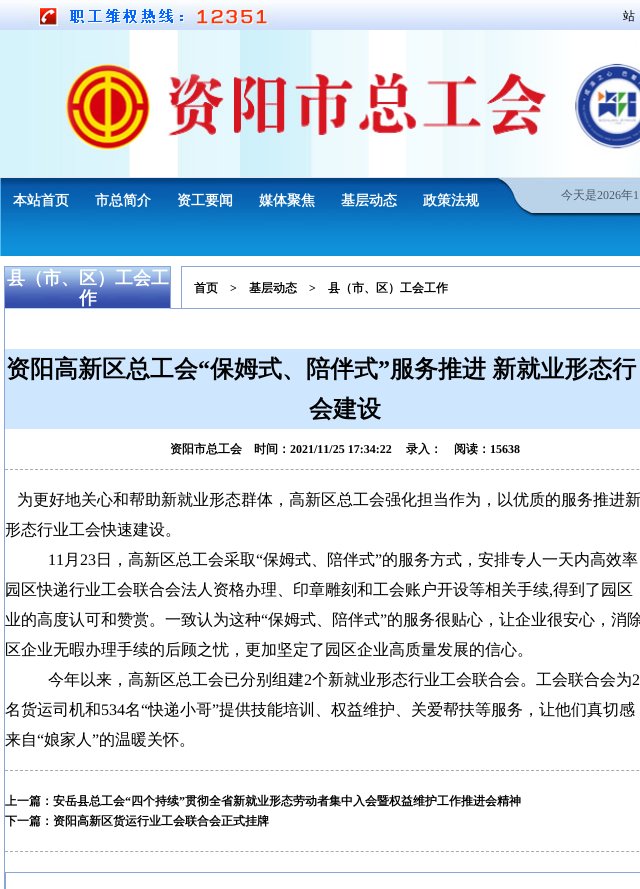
import math
import cairo


def use_color(cr, r, g, b):
  cr.set_source_rgb(r / 255, g / 255, b / 255)

def text(cr, x, y, s, family, size, color, bold=False, italic=False):
  cr.select_font_face(family, cairo.FONT_SLANT_ITALIC if italic else cairo.FONT_SLANT_NORMAL, cairo.FONT_WEIGHT_BOLD if bold else cairo.FONT_WEIGHT_NORMAL)
  cr.set_font_size(size)
  use_color(cr, *color)
  cr.move_to(x, y)
  cr.show_text(s)

def spaced_text(cr, x, y, s, letter, word):
  cr.move_to(x, y)
  for ch in s:
    cr.show_text(ch)
    cr.rel_move_to(letter + word * (ch == ' '), 0)

def box(cr, x, y, w, h, *color):
  use_color(cr, *color)
  cr.rectangle(x, y, w, h)
  cr.fill()

def picture(cr, path, x, y, w, h):
  cr.save()
  cr.set_source_surface(cairo.ImageSurface.create_from_png(path), x, y)
  cr.rectangle(x, y, w, h)
  cr.fill()
  cr.restore()

def draw(cr):
  use_color(cr, 255, 255, 255)
  cr.paint()
  picture(cr, "img_01.png", 0, 0, 640, 30)
  picture(cr, "img_02.png", 25, 0, 251, 30)
  picture(cr, "img_03.png", 0, 30, 640, 147)
  picture(cr, "img_04.png", 0, 177, 640, 79)
  picture(cr, "img_05.png", 5, 267, 165, 42)
  box(cr, 4, 266, 167, 1, 137, 166, 214)
  box(cr, 170, 266, 1, 43, 137, 166, 214)
  box(cr, 4, 266, 1, 623, 137, 166, 214)
  cr.rectangle(181.5, 266.5, 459, 42)
  cr.set_line_width(1)
  cr.stroke()
  box(cr, 171, 308, 10, 1, 137, 166, 214)
  box(cr, 5, 349, 635, 80, 206, 231, 255)
  cr.new_path()
  cr.move_to(5, 469.5)
  cr.line_to(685, 469.5)
  use_color(cr, 170, 170, 170)
  cr.set_dash([3, 2.01])
  cr.stroke()
  cr.new_path()
  cr.move_to(5, 770.5)
  cr.line_to(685, 770.5)
  cr.stroke()
  cr.new_path()
  cr.move_to(5, 851.5)
  cr.line_to(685, 851.5)
  cr.stroke()
  box(cr, 5, 872, 635, 1, 137, 166, 214)
  box(cr, 5, 872, 1, 17, 137, 166, 214)
  text(cr, 623, 20, "站", "WenQuanYi Zen Hei Medium", 12, (0, 0, 0))
  text(cr, 13, 205, "本站首页", "WenQuanYi Zen Hei", 14, (255, 255, 255), bold=True)
  text(cr, 95, 205, "市总简介", "WenQuanYi Zen Hei", 14, (255, 255, 255), bold=True)
  text(cr, 177, 205, "资工要闻", "WenQuanYi Zen Hei", 14, (255, 255, 255), bold=True)
  text(cr, 259, 205, "媒体聚焦", "WenQuanYi Zen Hei", 14, (255, 255, 255), bold=True)
  text(cr, 341, 205, "基层动态", "WenQuanYi Zen Hei", 14, (255, 255, 255), bold=True)
  text(cr, 423, 205, "政策法规", "WenQuanYi Zen Hei", 14, (255, 255, 255), bold=True)
  text(cr, 561, 199, "今天是", "WenQuanYi Zen Hei Medium", 12, (73, 90, 105))
  text(cr, 597, 199, "2026", "Liberation Serif", 12, (73, 90, 105))
  text(cr, 621, 199, "年", "WenQuanYi Zen Hei Medium", 12, (73, 90, 105))
  text(cr, 633, 199, "1", "Liberation Serif", 12, (73, 90, 105))
  text(cr, 7, 284, "县（市、区）工会工", "WenQuanYi Zen Hei", 18, (255, 255, 255), bold=True)
  text(cr, 79, 304, "作", "WenQuanYi Zen Hei", 18, (255, 255, 255), bold=True)
  text(cr, 194, 292, "首页", "WenQuanYi Zen Hei", 12, (0, 0, 0), bold=True)
  text(cr, 230, 292, ">", "Liberation Serif", 12, (0, 0, 0), bold=True)
  text(cr, 249, 292, "基层动态", "WenQuanYi Zen Hei", 12, (0, 0, 0), bold=True)
  text(cr, 309, 292, ">", "Liberation Serif", 12, (0, 0, 0), bold=True)
  text(cr, 328, 292, "县（市、区）工会工作", "WenQuanYi Zen Hei", 12, (0, 0, 0), bold=True)
  text(cr, 6, 377, "资阳高新区总工会", "WenQuanYi Zen Hei", 24, (0, 0, 0), bold=True)
  text(cr, 198, 377, "“", "Liberation Serif", 24, (0, 0, 0), bold=True)
  text(cr, 210, 377, "保姆式、陪伴式", "WenQuanYi Zen Hei", 24, (0, 0, 0), bold=True)
  text(cr, 378, 377, "”", "Liberation Serif", 24, (0, 0, 0), bold=True)
  cr.select_font_face("WenQuanYi Zen Hei", cairo.FONT_SLANT_NORMAL, cairo.FONT_WEIGHT_BOLD)
  spaced_text(cr, 390, 377, "服务推进 新就业形态行", 0, -1)
  text(cr, 309, 417, "会建设", "WenQuanYi Zen Hei", 24, (0, 0, 0), bold=True)
  text(cr, 170, 453, "资阳市总工会　时间：", "WenQuanYi Zen Hei", 12, (0, 0, 0), bold=True)
  text(cr, 290, 453, "2021/11/25 17:34:22", "Liberation Serif", 12, (0, 0, 0), bold=True)
  text(cr, 406, 453, "录入：", "WenQuanYi Zen Hei", 12, (0, 0, 0), bold=True)
  text(cr, 454, 453, "阅读：", "WenQuanYi Zen Hei", 12, (0, 0, 0), bold=True)
  text(cr, 490, 453, "15638", "Liberation Serif", 12, (0, 0, 0), bold=True)
  text(cr, 17, 505, "为更好地关心和帮助新就业形态群体，高新区总工会强化担当作为，以优质的服务推进新", "WenQuanYi Zen Hei Medium", 16, (0, 0, 0))
  text(cr, 5, 535, "形态行业工会快速建设。", "WenQuanYi Zen Hei Medium", 16, (0, 0, 0))
  text(cr, 48, 565, "11", "Liberation Serif", 16, (0, 0, 0))
  text(cr, 64, 565, "月", "WenQuanYi Zen Hei Medium", 16, (0, 0, 0))
  text(cr, 80, 565, "23", "Liberation Serif", 16, (0, 0, 0))
  text(cr, 96, 565, "日，高新区总工会采取", "WenQuanYi Zen Hei Medium", 16, (0, 0, 0))
  text(cr, 256, 565, "“", "Liberation Serif", 16, (0, 0, 0))
  text(cr, 263, 565, "保姆式、陪伴式", "WenQuanYi Zen Hei Medium", 16, (0, 0, 0))
  text(cr, 375, 565, "”", "Liberation Serif", 16, (0, 0, 0))
  text(cr, 382, 565, "的服务方式，安排专人一天内高效率", "WenQuanYi Zen Hei Medium", 16, (0, 0, 0))
  text(cr, 5, 595, "园区快递行业工会联合会法人资格办理、印章雕刻和工会账户开设等相关手续", "WenQuanYi Zen Hei Medium", 16, (0, 0, 0))
  text(cr, 549, 595, ",", "Liberation Serif", 16, (0, 0, 0))
  text(cr, 553, 595, "得到了园区", "WenQuanYi Zen Hei Medium", 16, (0, 0, 0))
  text(cr, 5, 625, "业的高度认可和赞赏。一致认为这种", "WenQuanYi Zen Hei Medium", 16, (0, 0, 0))
  text(cr, 261, 625, "“", "Liberation Serif", 16, (0, 0, 0))
  text(cr, 268, 625, "保姆式、陪伴式", "WenQuanYi Zen Hei Medium", 16, (0, 0, 0))
  text(cr, 380, 625, "”", "Liberation Serif", 16, (0, 0, 0))
  text(cr, 387, 625, "的服务很贴心，让企业很安心，消除", "WenQuanYi Zen Hei Medium", 16, (0, 0, 0))
  text(cr, 5, 655, "区企业无暇办理手续的后顾之忧，更加坚定了园区企业高质量发展的信心。", "WenQuanYi Zen Hei Medium", 16, (0, 0, 0))
  text(cr, 48, 685, "今年以来，高新区总工会已分别组建", "WenQuanYi Zen Hei Medium", 16, (0, 0, 0))
  text(cr, 304, 685, "2", "Liberation Serif", 16, (0, 0, 0))
  text(cr, 312, 685, "个新就业形态行业工会联合会。工会联合会为", "WenQuanYi Zen Hei Medium", 16, (0, 0, 0))
  text(cr, 632, 685, "2", "Liberation Serif", 16, (0, 0, 0))
  text(cr, 5, 715, "名货运司机和", "WenQuanYi Zen Hei Medium", 16, (0, 0, 0))
  text(cr, 101, 715, "534", "Liberation Serif", 16, (0, 0, 0))
  text(cr, 125, 715, "名", "WenQuanYi Zen Hei Medium", 16, (0, 0, 0))
  text(cr, 141, 715, "“", "Liberation Serif", 16, (0, 0, 0))
  text(cr, 148, 715, "快递小哥", "WenQuanYi Zen Hei Medium", 16, (0, 0, 0))
  text(cr, 212, 715, "”", "Liberation Serif", 16, (0, 0, 0))
  text(cr, 219, 715, "提供技能培训、权益维护、关爱帮扶等服务，让他们真切感", "WenQuanYi Zen Hei Medium", 16, (0, 0, 0))
  text(cr, 5, 745, "来自", "WenQuanYi Zen Hei Medium", 16, (0, 0, 0))
  text(cr, 37, 745, "“", "Liberation Serif", 16, (0, 0, 0))
  text(cr, 44, 745, "娘家人", "WenQuanYi Zen Hei Medium", 16, (0, 0, 0))
  text(cr, 92, 745, "”", "Liberation Serif", 16, (0, 0, 0))
  text(cr, 99, 745, "的温暖关怀。", "WenQuanYi Zen Hei Medium", 16, (0, 0, 0))
  text(cr, 5, 805, "上一篇：安岳县总工会", "WenQuanYi Zen Hei", 12, (0, 0, 0), bold=True)
  text(cr, 125, 805, "“", "Liberation Serif", 12, (0, 0, 0), bold=True)
  text(cr, 131, 805, "四个持续", "WenQuanYi Zen Hei", 12, (0, 0, 0), bold=True)
  text(cr, 179, 805, "”", "Liberation Serif", 12, (0, 0, 0), bold=True)
  text(cr, 185, 805, "贯彻全省新就业形态劳动者集中入会暨权益维护工作推进会精神", "WenQuanYi Zen Hei", 12, (0, 0, 0), bold=True)
  text(cr, 5, 825, "下一篇：资阳高新区货运行业工会联合会正式挂牌", "WenQuanYi Zen Hei", 12, (0, 0, 0), bold=True)


surface = cairo.ImageSurface(cairo.FORMAT_RGB24, 640, 889)
cr = cairo.Context(surface)
options = cairo.FontOptions()
options.set_hint_metrics(cairo.HINT_METRICS_OFF)
options.set_hint_style(cairo.HINT_STYLE_NONE)
cr.set_font_options(options)
cr.set_miter_limit(4)
draw(cr)
surface.write_to_png("out.png")
